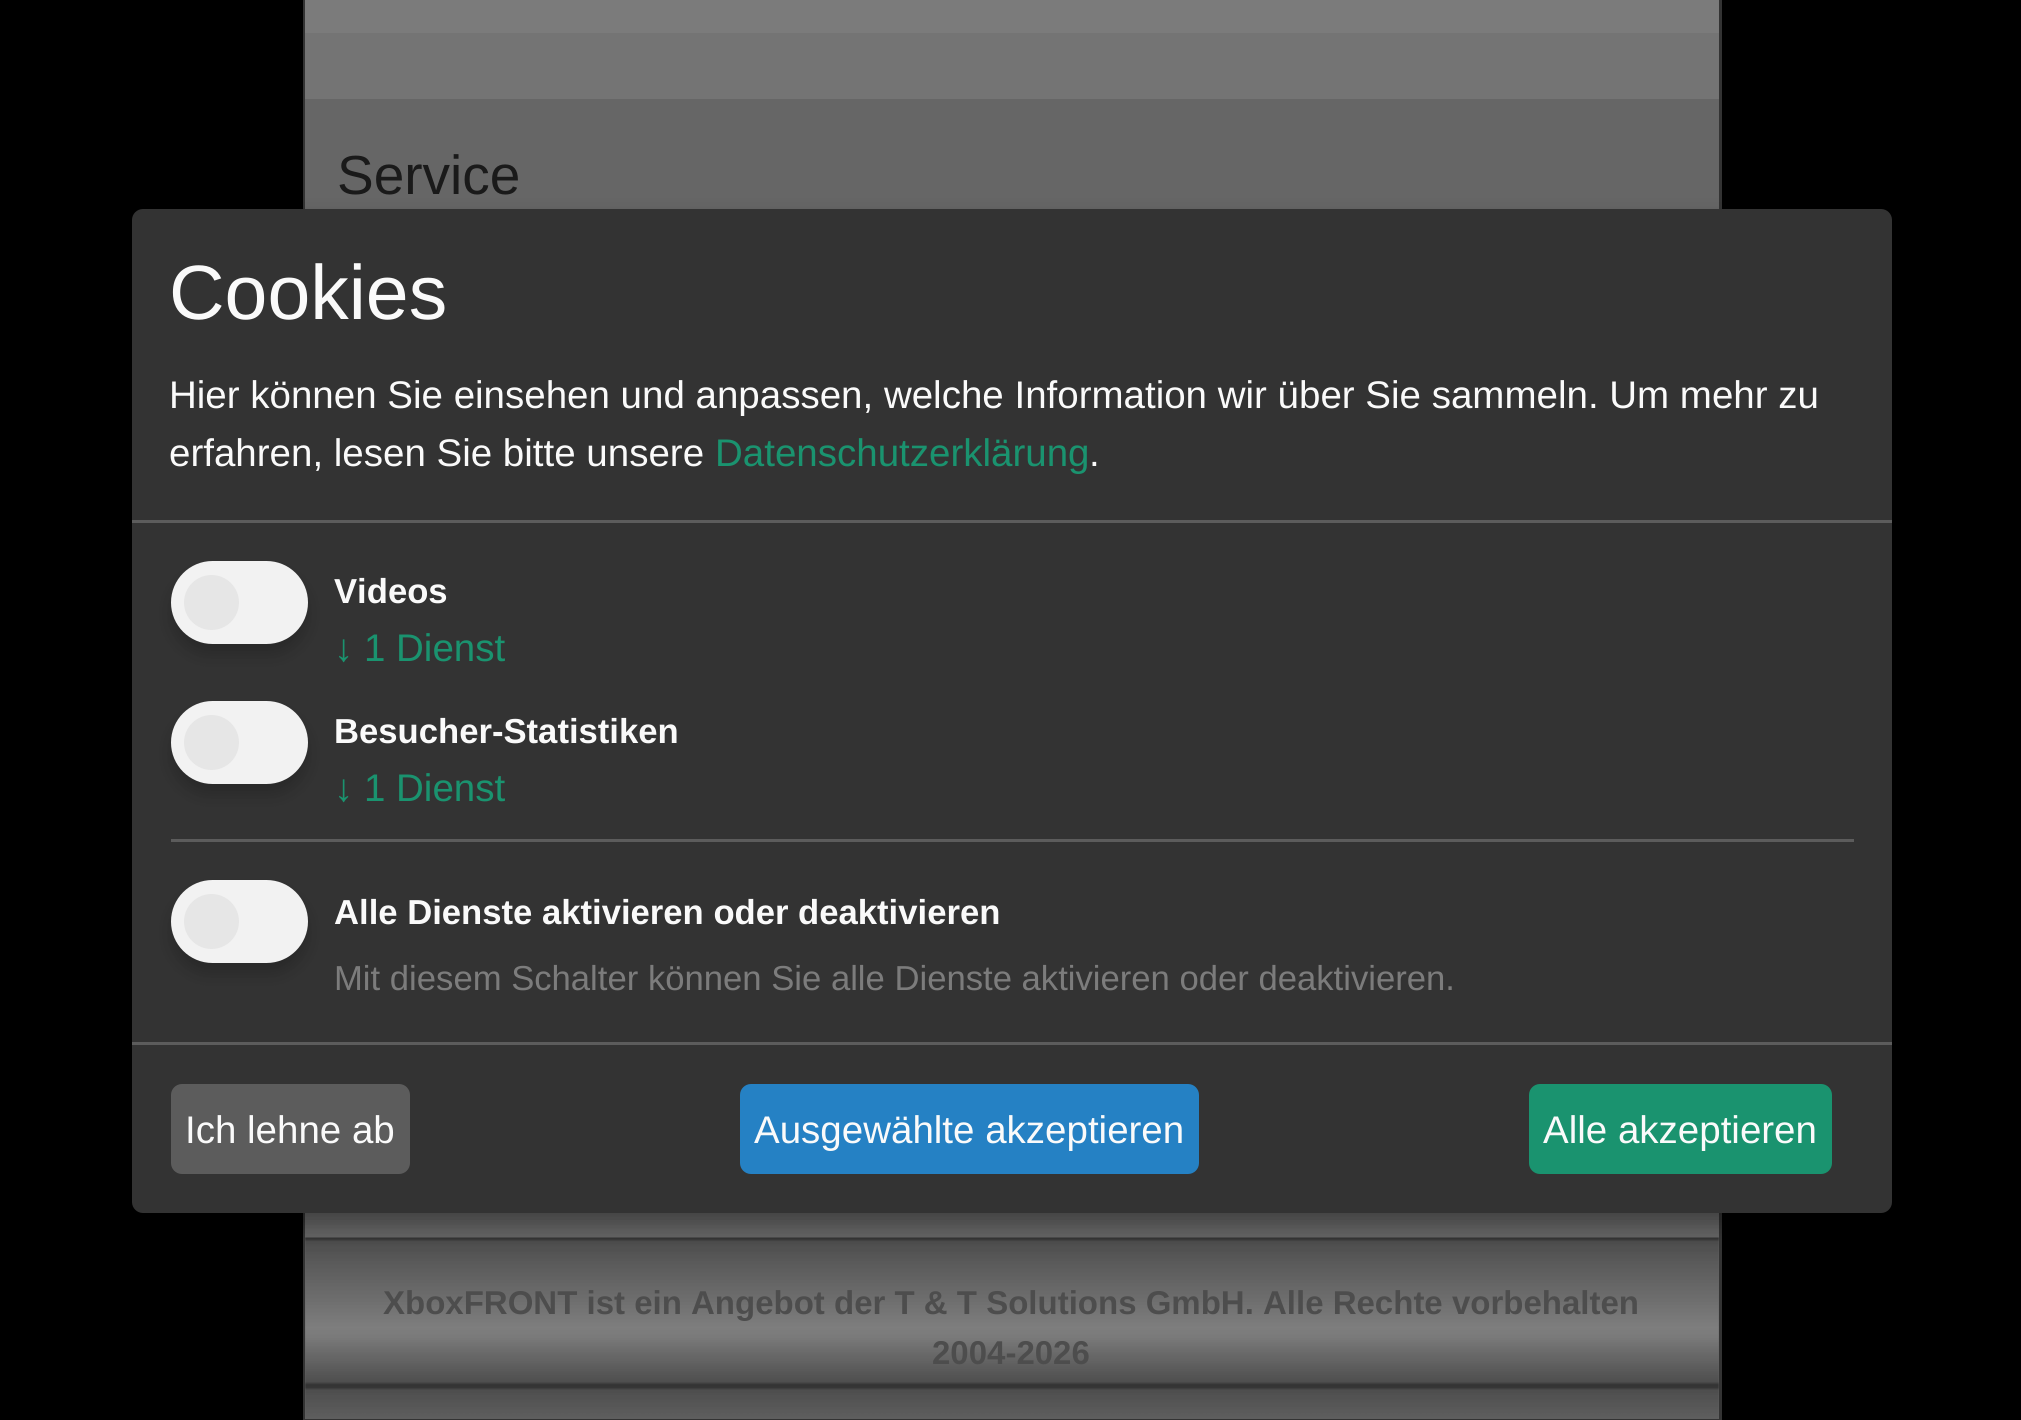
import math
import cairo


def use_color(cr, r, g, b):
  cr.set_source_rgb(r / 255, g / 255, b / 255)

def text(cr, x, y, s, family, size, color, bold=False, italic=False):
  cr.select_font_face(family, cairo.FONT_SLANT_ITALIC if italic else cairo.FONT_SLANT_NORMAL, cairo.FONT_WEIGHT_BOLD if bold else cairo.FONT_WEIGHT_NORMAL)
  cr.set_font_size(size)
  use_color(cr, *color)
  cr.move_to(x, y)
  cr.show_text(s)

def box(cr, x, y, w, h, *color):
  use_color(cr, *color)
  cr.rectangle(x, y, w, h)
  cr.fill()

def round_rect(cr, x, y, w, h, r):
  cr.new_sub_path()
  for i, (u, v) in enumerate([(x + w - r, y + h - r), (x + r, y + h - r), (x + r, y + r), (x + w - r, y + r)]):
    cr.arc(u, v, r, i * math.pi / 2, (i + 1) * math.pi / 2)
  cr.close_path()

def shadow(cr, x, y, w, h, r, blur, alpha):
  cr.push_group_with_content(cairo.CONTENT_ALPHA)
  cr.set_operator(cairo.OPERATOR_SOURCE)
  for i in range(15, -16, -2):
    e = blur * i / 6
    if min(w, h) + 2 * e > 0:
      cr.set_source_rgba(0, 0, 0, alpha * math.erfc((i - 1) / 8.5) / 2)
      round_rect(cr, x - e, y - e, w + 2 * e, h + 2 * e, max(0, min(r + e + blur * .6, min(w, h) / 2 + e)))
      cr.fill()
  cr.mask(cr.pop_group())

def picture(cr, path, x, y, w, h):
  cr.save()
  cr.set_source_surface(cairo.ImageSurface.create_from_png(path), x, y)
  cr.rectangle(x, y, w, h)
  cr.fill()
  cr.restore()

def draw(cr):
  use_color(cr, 0, 0, 0)
  cr.paint()
  box(cr, 1719, 0, 3, 1420, 51, 51, 51)
  box(cr, 303, 1419, 1419, 1, 51, 51, 51)
  box(cr, 303, 0, 3, 1420, 51, 51, 51)
  box(cr, 305, 0, 1414, 33, 123, 123, 123)
  box(cr, 305, 33, 1414, 66, 116, 116, 116)
  box(cr, 305, 99, 1414, 1320, 102, 102, 102)
  picture(cr, "img_01.png", 305, 1237, 1414, 182)
  use_color(cr, 0, 0, 0)
  shadow(cr, 146, 223, 1760, 1004, 11, 14, 0.19)
  shadow(cr, 132, 220, 1760, 1004, 11, 8, 0.2)
  use_color(cr, 51, 51, 51)
  round_rect(cr, 132, 209, 1760, 1004, 11)
  cr.fill()
  box(cr, 132, 520, 1760, 3, 92, 92, 92)
  use_color(cr, 0, 0, 0)
  shadow(cr, 171, 572, 137, 83, 41.5, 8, 0.2)
  use_color(cr, 242, 242, 242)
  round_rect(cr, 171, 561, 137, 83, 41.5)
  cr.fill()
  use_color(cr, 230, 230, 230)
  cr.arc(211.5, 602.5, 27.5, 0, 2 * math.pi)
  cr.fill()
  use_color(cr, 0, 0, 0)
  shadow(cr, 171, 712, 137, 83, 41.5, 8, 0.2)
  use_color(cr, 242, 242, 242)
  round_rect(cr, 171, 701, 137, 83, 41.5)
  cr.fill()
  use_color(cr, 230, 230, 230)
  cr.arc(211.5, 742.5, 27.5, 0, 2 * math.pi)
  cr.fill()
  box(cr, 171, 839, 1683, 3, 92, 92, 92)
  use_color(cr, 0, 0, 0)
  shadow(cr, 171, 891, 137, 83, 41.5, 8, 0.2)
  use_color(cr, 242, 242, 242)
  round_rect(cr, 171, 880, 137, 83, 41.5)
  cr.fill()
  use_color(cr, 230, 230, 230)
  cr.arc(211.5, 921.5, 27.5, 0, 2 * math.pi)
  cr.fill()
  box(cr, 132, 1042, 1760, 3, 92, 92, 92)
  round_rect(cr, 171, 1084, 239, 90, 11)
  cr.fill()
  use_color(cr, 37, 129, 196)
  round_rect(cr, 740, 1084, 459, 90, 11)
  cr.fill()
  use_color(cr, 26, 147, 111)
  round_rect(cr, 1529, 1084, 303, 90, 11)
  cr.fill()
  text(cr, 337, 194, "Service", "Liberation Sans", 55, (26, 26, 26))
  text(cr, 383, 1314, "XboxFRONT ist ein Angebot der T & T Solutions GmbH. Alle Rechte vorbehalten", "Liberation Sans", 33, (77, 77, 77), bold=True)
  text(cr, 932, 1364, "2004-2026", "Liberation Sans", 33, (77, 77, 77), bold=True)
  text(cr, 169, 319, "Cookies", "Liberation Sans", 77, (250, 250, 250))
  text(cr, 169, 408, "Hier können Sie einsehen und anpassen, welche Information wir über Sie sammeln. Um mehr zu", "Liberation Sans", 38.5, (250, 250, 250))
  text(cr, 169, 466, "erfahren, lesen Sie bitte unsere", "Liberation Sans", 38.5, (250, 250, 250))
  text(cr, 715, 466, "Datenschutzerklärung", "Liberation Sans", 38.5, (26, 147, 111))
  text(cr, 1089, 466, ".", "Liberation Sans", 38.5, (250, 250, 250))
  text(cr, 334, 603, "Videos", "Liberation Sans", 34.65, (250, 250, 250), bold=True)
  text(cr, 334, 661, "↓ 1 Dienst", "Liberation Sans", 38.5, (26, 147, 111))
  text(cr, 334, 743, "Besucher-Statistiken", "Liberation Sans", 34.65, (250, 250, 250), bold=True)
  text(cr, 334, 801, "↓ 1 Dienst", "Liberation Sans", 38.5, (26, 147, 111))
  text(cr, 334, 924, "Alle Dienste aktivieren oder deaktivieren", "Liberation Sans", 34.65, (250, 250, 250), bold=True)
  text(cr, 334, 990, "Mit diesem Schalter können Sie alle Dienste aktivieren oder deaktivieren.", "Liberation Sans", 34.65, (124, 124, 124))
  text(cr, 185, 1143, "Ich lehne ab", "Liberation Sans", 38.5, (250, 250, 250))
  text(cr, 754, 1143, "Ausgewählte akzeptieren", "Liberation Sans", 38.5, (250, 250, 250))
  text(cr, 1543, 1143, "Alle akzeptieren", "Liberation Sans", 38.5, (250, 250, 250))


surface = cairo.ImageSurface(cairo.FORMAT_RGB24, 2021, 1420)
cr = cairo.Context(surface)
options = cairo.FontOptions()
options.set_hint_metrics(cairo.HINT_METRICS_OFF)
options.set_hint_style(cairo.HINT_STYLE_NONE)
cr.set_font_options(options)
cr.set_miter_limit(4)
draw(cr)
surface.write_to_png("out.png")
